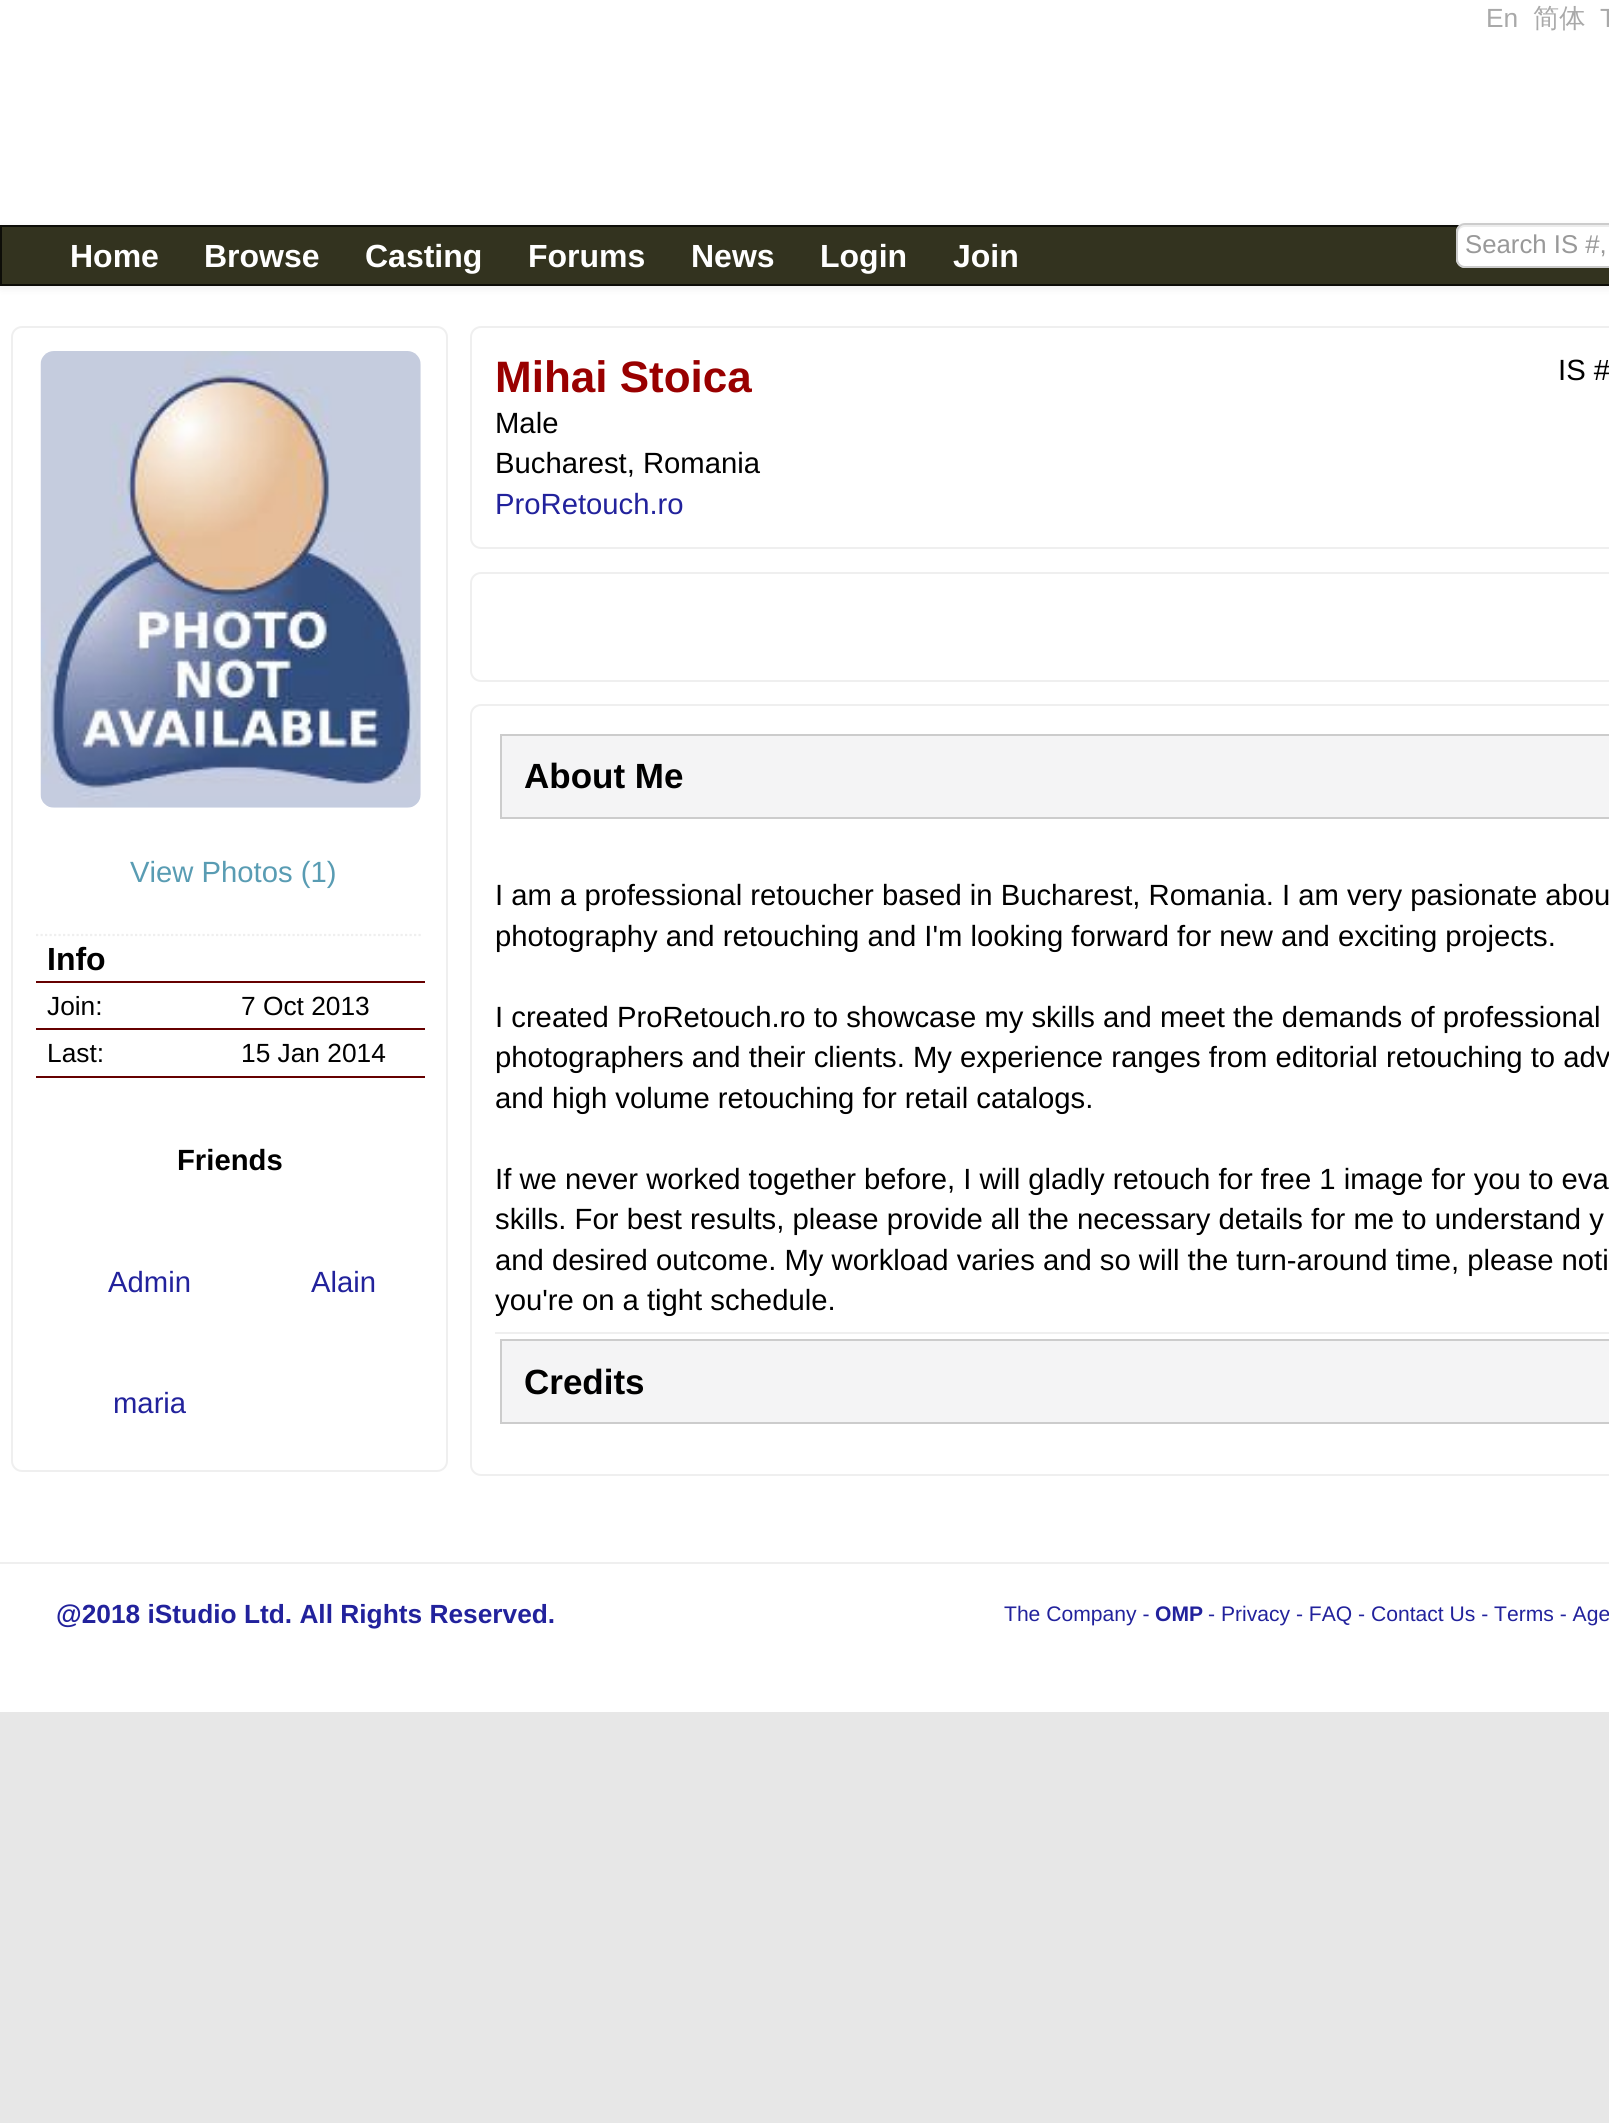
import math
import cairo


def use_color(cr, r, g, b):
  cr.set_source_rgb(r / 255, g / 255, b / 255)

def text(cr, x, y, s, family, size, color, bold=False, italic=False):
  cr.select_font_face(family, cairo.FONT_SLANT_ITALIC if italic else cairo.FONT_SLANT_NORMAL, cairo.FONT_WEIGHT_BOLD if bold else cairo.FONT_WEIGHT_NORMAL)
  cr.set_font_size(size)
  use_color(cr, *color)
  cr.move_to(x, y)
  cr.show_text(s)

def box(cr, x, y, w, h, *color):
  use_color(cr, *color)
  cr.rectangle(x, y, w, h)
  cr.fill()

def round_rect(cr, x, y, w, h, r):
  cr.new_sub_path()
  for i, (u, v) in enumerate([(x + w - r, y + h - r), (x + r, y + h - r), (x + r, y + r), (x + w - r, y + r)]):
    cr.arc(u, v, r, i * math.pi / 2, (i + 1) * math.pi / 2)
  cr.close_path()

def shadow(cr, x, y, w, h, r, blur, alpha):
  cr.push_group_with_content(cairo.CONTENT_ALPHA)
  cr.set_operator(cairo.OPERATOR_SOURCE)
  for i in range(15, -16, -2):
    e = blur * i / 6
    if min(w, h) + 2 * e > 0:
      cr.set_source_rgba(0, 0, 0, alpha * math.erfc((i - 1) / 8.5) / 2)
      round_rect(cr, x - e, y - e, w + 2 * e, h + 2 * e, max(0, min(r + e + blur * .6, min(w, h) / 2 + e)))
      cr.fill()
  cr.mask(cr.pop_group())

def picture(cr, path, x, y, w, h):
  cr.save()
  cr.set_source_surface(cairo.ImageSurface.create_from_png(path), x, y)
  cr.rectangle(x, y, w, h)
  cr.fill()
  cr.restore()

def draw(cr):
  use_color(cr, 231, 231, 231)
  cr.paint()
  box(cr, 0, 0, 1609, 1712, 255, 255, 255)
  use_color(cr, 0, 0, 0)
  shadow(cr, 0, 227, 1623, 61, 0, 4.5, 0.07)
  use_color(cr, 51, 51, 31)
  cr.rectangle(1, 226, 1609, 59)
  cr.fill_preserve()
  use_color(cr, 13, 13, 8)
  cr.stroke()
  use_color(cr, 255, 255, 255)
  round_rect(cr, 1456, 223, 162, 45, 9)
  cr.fill()
  use_color(cr, 236, 236, 236)
  cr.new_path()
  cr.move_to(1465, 227)
  cr.line_to(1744, 227)
  cr.curve_to(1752, 227, 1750, 239, 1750, 243)
  cr.line_to(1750, 263)
  cr.curve_to(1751, 262, 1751, 260, 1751, 259)
  cr.line_to(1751, 232)
  cr.curve_to(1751, 228, 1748, 225, 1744, 225)
  cr.line_to(1465, 225)
  cr.curve_to(1461, 225, 1458, 228, 1458, 232)
  cr.line_to(1458, 234)
  cr.curve_to(1458, 230, 1461, 227, 1465, 227)
  cr.close_path()
  cr.fill()
  round_rect(cr, 1457, 224, 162, 43, 8)
  use_color(cr, 204, 204, 204)
  cr.stroke()
  round_rect(cr, 471, 327, 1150, 221, 10)
  use_color(cr, 239, 239, 239)
  cr.stroke()
  round_rect(cr, 471, 573, 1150, 108, 10)
  cr.stroke()
  round_rect(cr, 12, 327, 435, 1144, 10)
  cr.stroke()
  picture(cr, "img_01.png", 40, 351, 381, 457)
  cr.new_path()
  cr.move_to(36, 935)
  cr.line_to(423, 935)
  cr.set_line_width(2.2)
  cr.set_dash([2.25, 2.25])
  cr.stroke()
  box(cr, 36, 981, 389, 2, 102, 0, 0)
  box(cr, 36, 1028, 389, 2, 102, 0, 0)
  box(cr, 36, 1076, 389, 2, 102, 0, 0)
  round_rect(cr, 471, 705, 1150, 770, 10)
  use_color(cr, 239, 239, 239)
  cr.set_line_width(2)
  cr.set_dash([])
  cr.stroke()
  use_color(cr, 244, 244, 245)
  cr.rectangle(501, 735, 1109, 83)
  cr.fill_preserve()
  use_color(cr, 204, 204, 204)
  cr.stroke()
  box(cr, 495, 1332, 1114, 2, 239, 239, 239)
  use_color(cr, 244, 244, 245)
  cr.rectangle(501, 1340, 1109, 83)
  cr.fill_preserve()
  use_color(cr, 204, 204, 204)
  cr.stroke()
  box(cr, 0, 1562, 1609, 2, 239, 239, 239)
  text(cr, 1486, 27, "En", "Liberation Sans", 26.3, (169, 169, 169))
  text(cr, 1533, 27, "简体", "WenQuanYi Zen Hei Medium", 26.3, (169, 169, 169))
  text(cr, 1600, 27, "T", "Liberation Sans", 26.3, (169, 169, 169))
  text(cr, 70, 267, "Home", "Liberation Sans", 32, (255, 255, 255), bold=True)
  text(cr, 204, 267, "Browse", "Liberation Sans", 32, (255, 255, 255), bold=True)
  text(cr, 365, 267, "Casting", "Liberation Sans", 32, (255, 255, 255), bold=True)
  text(cr, 528, 267, "Forums", "Liberation Sans", 32, (255, 255, 255), bold=True)
  text(cr, 691, 267, "News", "Liberation Sans", 32, (255, 255, 255), bold=True)
  text(cr, 820, 267, "Login", "Liberation Sans", 32, (255, 255, 255), bold=True)
  text(cr, 953, 267, "Join", "Liberation Sans", 32, (255, 255, 255), bold=True)
  text(cr, 1465, 253, "Search IS #,", "Liberation Sans", 25.75, (153, 153, 153))
  text(cr, 495, 392, "Mihai Stoica", "Liberation Sans", 44, (153, 0, 0), bold=True)
  text(cr, 495, 433, "Male", "Liberation Sans", 29.25, (0, 0, 0))
  text(cr, 495, 473, "Bucharest, Romania", "Liberation Sans", 29.25, (0, 0, 0))
  text(cr, 495, 514, "ProRetouch.ro", "Liberation Sans", 29.25, (34, 34, 156))
  text(cr, 1558, 380, "IS #", "Liberation Sans", 29.25, (0, 0, 0))
  text(cr, 130, 882, "View Photos (1)", "Liberation Sans", 29.25, (89, 156, 179))
  text(cr, 47, 970, "Info", "Liberation Sans", 32, (0, 0, 0), bold=True)
  text(cr, 47, 1015, "Join:", "Liberation Sans", 26.3, (0, 0, 0))
  text(cr, 241, 1015, "7 Oct 2013", "Liberation Sans", 26.3, (0, 0, 0))
  text(cr, 47, 1062, "Last:", "Liberation Sans", 26.3, (0, 0, 0))
  text(cr, 241, 1062, "15 Jan 2014", "Liberation Sans", 26.3, (0, 0, 0))
  text(cr, 177, 1170, "Friends", "Liberation Sans", 29.25, (0, 0, 0), bold=True)
  text(cr, 108, 1292, "Admin", "Liberation Sans", 29.25, (34, 34, 156))
  text(cr, 311, 1292, "Alain", "Liberation Sans", 29.25, (34, 34, 156))
  text(cr, 113, 1413, "maria", "Liberation Sans", 29.25, (34, 34, 156))
  text(cr, 524, 788, "About Me", "Liberation Sans", 35, (0, 0, 0), bold=True)
  text(cr, 495, 905, "I am a professional retoucher based in Bucharest, Romania. I am very pasionate abou", "Liberation Sans", 29.25, (0, 0, 0))
  text(cr, 495, 946, "photography and retouching and I'm looking forward for new and exciting projects.", "Liberation Sans", 29.25, (0, 0, 0))
  text(cr, 495, 1027, "I created ProRetouch.ro to showcase my skills and meet the demands of professional", "Liberation Sans", 29.25, (0, 0, 0))
  text(cr, 495, 1067, "photographers and their clients. My experience ranges from editorial retouching to adv", "Liberation Sans", 29.25, (0, 0, 0))
  text(cr, 495, 1108, "and high volume retouching for retail catalogs.", "Liberation Sans", 29.25, (0, 0, 0))
  text(cr, 495, 1189, "If we never worked together before, I will gladly retouch for free 1 image for you to eva", "Liberation Sans", 29.25, (0, 0, 0))
  text(cr, 495, 1229, "skills. For best results, please provide all the necessary details for me to understand y", "Liberation Sans", 29.25, (0, 0, 0))
  text(cr, 495, 1270, "and desired outcome. My workload varies and so will the turn-around time, please noti", "Liberation Sans", 29.25, (0, 0, 0))
  text(cr, 495, 1310, "you're on a tight schedule.", "Liberation Sans", 29.25, (0, 0, 0))
  text(cr, 524, 1394, "Credits", "Liberation Sans", 35, (0, 0, 0), bold=True)
  text(cr, 56, 1623, "@2018 iStudio Ltd. All Rights Reserved.", "Liberation Sans", 26.3, (34, 34, 156), bold=True)
  text(cr, 1004, 1621, "The Company -", "Liberation Sans", 21.1, (34, 34, 156))
  text(cr, 1155, 1621, "OMP", "Liberation Sans", 21.1, (34, 34, 156), bold=True)
  text(cr, 1208, 1621, "- Privacy - FAQ - Contact Us - Terms - Age", "Liberation Sans", 21.1, (34, 34, 156))


surface = cairo.ImageSurface(cairo.FORMAT_RGB24, 1609, 2123)
cr = cairo.Context(surface)
options = cairo.FontOptions()
options.set_hint_metrics(cairo.HINT_METRICS_OFF)
options.set_hint_style(cairo.HINT_STYLE_NONE)
cr.set_font_options(options)
cr.set_miter_limit(4)
draw(cr)
surface.write_to_png("out.png")
